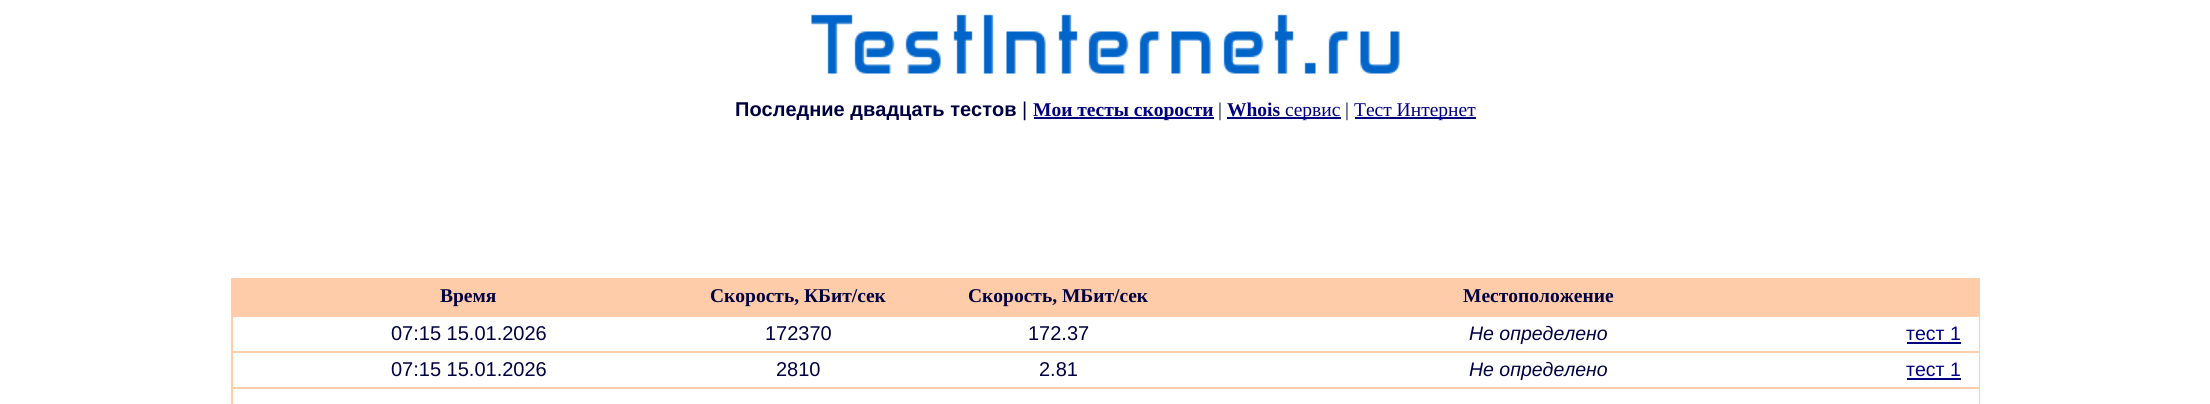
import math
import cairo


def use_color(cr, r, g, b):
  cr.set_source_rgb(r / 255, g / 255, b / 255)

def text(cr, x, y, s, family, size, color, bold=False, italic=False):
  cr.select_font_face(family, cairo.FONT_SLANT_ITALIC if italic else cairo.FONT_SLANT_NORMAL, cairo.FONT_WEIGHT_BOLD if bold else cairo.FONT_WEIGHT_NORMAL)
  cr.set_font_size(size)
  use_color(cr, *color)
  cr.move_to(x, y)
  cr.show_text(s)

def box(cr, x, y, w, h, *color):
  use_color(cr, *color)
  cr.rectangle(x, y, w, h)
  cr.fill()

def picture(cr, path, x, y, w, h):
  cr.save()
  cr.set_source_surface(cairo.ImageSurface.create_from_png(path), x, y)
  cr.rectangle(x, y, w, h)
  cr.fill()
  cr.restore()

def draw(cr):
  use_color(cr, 255, 255, 255)
  cr.paint()
  picture(cr, "img_01.png", 811, 14, 589, 60)
  box(cr, 1034, 117, 180, 2, 0, 0, 128)
  box(cr, 1227, 117, 114, 2, 0, 0, 128)
  box(cr, 1355, 117, 121, 2, 0, 0, 128)
  box(cr, 231, 278, 1749, 126, 255, 204, 170)
  box(cr, 233, 317, 1746, 34, 255, 255, 255)
  box(cr, 1907, 342, 54, 2, 0, 0, 128)
  box(cr, 233, 353, 1746, 34, 255, 255, 255)
  box(cr, 1907, 378, 54, 2, 0, 0, 128)
  box(cr, 233, 389, 1746, 15, 255, 255, 255)
  text(cr, 735, 116, "Последние двадцать тестов", "Liberation Sans", 20, (0, 0, 64), bold=True)
  text(cr, 1022, 116, "|", "Liberation Sans", 20, (0, 0, 64))
  text(cr, 1033, 116, "Мои тесты скорости", "Liberation Serif", 19.5, (0, 0, 128), bold=True)
  text(cr, 1218, 116, "|", "Liberation Serif", 19.5, (0, 0, 64))
  text(cr, 1227, 116, "Whois", "Liberation Serif", 19.5, (0, 0, 128), bold=True)
  text(cr, 1285, 116, "сервис", "Liberation Serif", 19.5, (0, 0, 128))
  text(cr, 1345, 116, "|", "Liberation Serif", 19.5, (0, 0, 64))
  text(cr, 1354, 116, "Тест Интернет", "Liberation Serif", 19.5, (0, 0, 128))
  text(cr, 440, 302, "Время", "Liberation Serif", 19.5, (0, 0, 64), bold=True)
  text(cr, 710, 302, "Скорость, КБит/сек", "Liberation Serif", 19.5, (0, 0, 64), bold=True)
  text(cr, 968, 302, "Скорость, МБит/сек", "Liberation Serif", 19.5, (0, 0, 64), bold=True)
  text(cr, 1463, 302, "Местоположение", "Liberation Serif", 19.5, (0, 0, 64), bold=True)
  text(cr, 391, 340, "07:15 15.01.2026", "Liberation Sans", 20, (0, 0, 64))
  text(cr, 765, 340, "172370", "Liberation Sans", 20, (0, 0, 64))
  text(cr, 1028, 340, "172.37", "Liberation Sans", 20, (0, 0, 64))
  text(cr, 1469, 340, "Не определено", "Liberation Sans", 19.5, (0, 0, 64), italic=True)
  text(cr, 1906, 340, "тест 1", "Liberation Sans", 19.5, (0, 0, 128))
  text(cr, 391, 376, "07:15 15.01.2026", "Liberation Sans", 20, (0, 0, 64))
  text(cr, 776, 376, "2810", "Liberation Sans", 20, (0, 0, 64))
  text(cr, 1039, 376, "2.81", "Liberation Sans", 20, (0, 0, 64))
  text(cr, 1469, 376, "Не определено", "Liberation Sans", 19.5, (0, 0, 64), italic=True)
  text(cr, 1906, 376, "тест 1", "Liberation Sans", 19.5, (0, 0, 128))


surface = cairo.ImageSurface(cairo.FORMAT_RGB24, 2210, 404)
cr = cairo.Context(surface)
options = cairo.FontOptions()
options.set_hint_metrics(cairo.HINT_METRICS_OFF)
options.set_hint_style(cairo.HINT_STYLE_NONE)
cr.set_font_options(options)
cr.set_miter_limit(4)
draw(cr)
surface.write_to_png("out.png")
